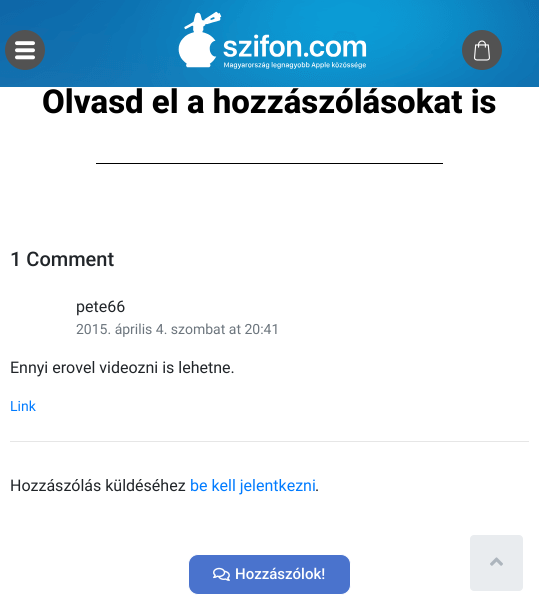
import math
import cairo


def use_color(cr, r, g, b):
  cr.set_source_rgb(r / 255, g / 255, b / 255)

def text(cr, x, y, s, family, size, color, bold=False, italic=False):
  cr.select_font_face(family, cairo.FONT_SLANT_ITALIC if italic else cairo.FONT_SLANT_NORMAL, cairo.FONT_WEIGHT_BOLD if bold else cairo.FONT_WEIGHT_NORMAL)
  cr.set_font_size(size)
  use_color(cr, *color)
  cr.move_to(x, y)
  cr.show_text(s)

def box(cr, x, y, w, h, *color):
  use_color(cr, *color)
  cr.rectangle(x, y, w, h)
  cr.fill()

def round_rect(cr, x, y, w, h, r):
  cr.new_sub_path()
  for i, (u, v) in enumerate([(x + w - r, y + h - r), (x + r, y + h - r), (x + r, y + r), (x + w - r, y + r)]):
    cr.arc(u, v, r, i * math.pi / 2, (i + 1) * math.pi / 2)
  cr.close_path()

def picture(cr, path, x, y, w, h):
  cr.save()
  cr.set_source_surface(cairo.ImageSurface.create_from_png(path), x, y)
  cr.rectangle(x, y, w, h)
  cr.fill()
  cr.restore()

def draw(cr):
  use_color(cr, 255, 255, 255)
  cr.paint()
  picture(cr, "img_01.png", 0, 0, 539, 87)
  use_color(cr, 82, 82, 82)
  cr.arc(25, 50, 20, 0, 2 * math.pi)
  cr.fill()
  picture(cr, "img_02.png", 15, 41, 20, 19)
  picture(cr, "img_03.png", 178, 11, 189, 58)
  cr.arc(482, 50, 20, 0, 2 * math.pi)
  cr.fill()
  picture(cr, "img_04.png", 474, 40, 16, 21)
  box(cr, 96, 163, 347, 1, 0, 0, 0)
  box(cr, 10, 441, 519, 1, 230, 230, 230)
  use_color(cr, 74, 115, 205)
  round_rect(cr, 188.5, 554.5, 162, 40, 9.5)
  cr.fill_preserve()
  use_color(cr, 255, 255, 255)
  cr.set_line_width(1)
  cr.stroke()
  picture(cr, "img_05.png", 213, 567, 17, 14)
  use_color(cr, 233, 236, 239)
  round_rect(cr, 470.5, 535.5, 52, 55, 3.5)
  cr.fill_preserve()
  cr.stroke()
  picture(cr, "img_06.png", 490, 557, 13, 9)
  text(cr, 42, 113, "Olvasd el a hozzászólásokat is", "Roboto ExtraBold", 33, (0, 0, 0))
  text(cr, 10, 266, "1 Comment", "Roboto Medium", 20, (33, 37, 41))
  text(cr, 76, 312, "pete66", "Roboto", 16, (33, 37, 41))
  text(cr, 76, 334, "2015. április 4. szombat at 20:41", "Roboto", 14, (108, 117, 125))
  text(cr, 10, 373, "Ennyi erovel videozni is lehetne.", "Roboto", 16, (33, 37, 41))
  text(cr, 10, 411, "Link", "Roboto", 14, (0, 123, 255))
  text(cr, 10, 491, "Hozzászólás küldéséhez", "Roboto", 16, (33, 37, 41))
  text(cr, 190, 491, "be kell jelentkezni", "Roboto", 16, (0, 123, 255))
  text(cr, 315, 491, ".", "Roboto", 16, (33, 37, 41))
  text(cr, 235, 579, "Hozzászólok!", "Roboto Medium", 15, (255, 255, 255))


surface = cairo.ImageSurface(cairo.FORMAT_RGB24, 539, 607)
cr = cairo.Context(surface)
options = cairo.FontOptions()
options.set_hint_metrics(cairo.HINT_METRICS_OFF)
options.set_hint_style(cairo.HINT_STYLE_NONE)
cr.set_font_options(options)
cr.set_miter_limit(4)
draw(cr)
surface.write_to_png("out.png")
